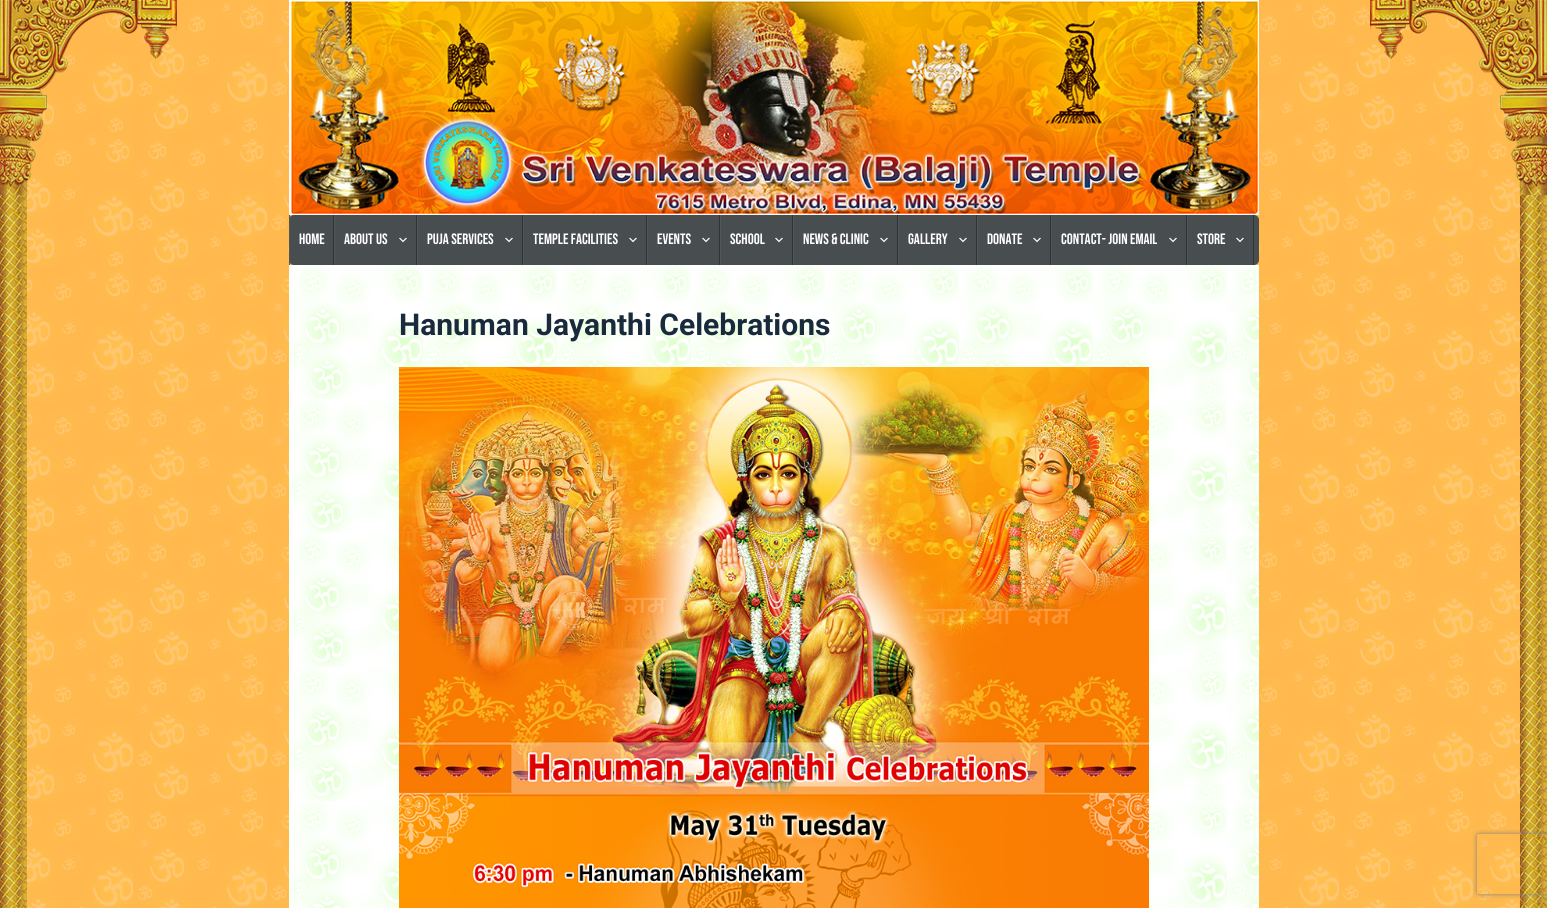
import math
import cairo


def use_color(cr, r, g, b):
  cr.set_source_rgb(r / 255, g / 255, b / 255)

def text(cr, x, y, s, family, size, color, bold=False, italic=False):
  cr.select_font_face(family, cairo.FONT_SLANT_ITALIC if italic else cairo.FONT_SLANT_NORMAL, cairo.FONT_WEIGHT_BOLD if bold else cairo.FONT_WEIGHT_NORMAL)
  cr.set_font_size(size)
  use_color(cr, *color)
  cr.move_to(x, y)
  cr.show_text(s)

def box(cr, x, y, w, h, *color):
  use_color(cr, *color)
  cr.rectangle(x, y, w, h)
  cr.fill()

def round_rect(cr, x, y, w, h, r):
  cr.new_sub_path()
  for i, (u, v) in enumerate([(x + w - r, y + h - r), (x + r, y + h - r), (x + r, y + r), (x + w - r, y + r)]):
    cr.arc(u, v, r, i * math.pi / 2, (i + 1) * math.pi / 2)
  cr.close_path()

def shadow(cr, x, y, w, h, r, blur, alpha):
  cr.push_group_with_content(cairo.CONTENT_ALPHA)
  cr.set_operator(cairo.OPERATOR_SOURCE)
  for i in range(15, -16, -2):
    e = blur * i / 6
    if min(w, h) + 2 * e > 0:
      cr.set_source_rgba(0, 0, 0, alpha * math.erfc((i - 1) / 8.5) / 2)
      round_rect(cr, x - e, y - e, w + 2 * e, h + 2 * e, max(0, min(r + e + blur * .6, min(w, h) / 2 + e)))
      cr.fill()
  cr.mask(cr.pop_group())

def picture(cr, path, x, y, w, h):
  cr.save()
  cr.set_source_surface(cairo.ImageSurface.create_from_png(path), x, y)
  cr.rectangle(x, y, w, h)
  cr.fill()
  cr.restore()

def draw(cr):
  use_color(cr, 255, 255, 255)
  cr.paint()
  picture(cr, "img_01.png", 0, 0, 1547, 908)
  picture(cr, "img_02.png", 289, 0, 970, 215)
  use_color(cr, 72, 77, 80)
  round_rect(cr, 289, 215, 970, 50, 5)
  cr.fill()
  box(cr, 333, 215, 1, 50, 48, 51, 54)
  box(cr, 289, 215, 1, 50, 81, 86, 89)
  box(cr, 416, 215, 1, 50, 48, 51, 54)
  box(cr, 334, 215, 1, 50, 81, 86, 89)
  picture(cr, "img_03.png", 399, 237, 8, 6)
  box(cr, 522, 215, 1, 50, 48, 51, 54)
  box(cr, 417, 215, 1, 50, 81, 86, 89)
  picture(cr, "img_03.png", 505, 237, 8, 6)
  box(cr, 646, 215, 1, 50, 48, 51, 54)
  box(cr, 523, 215, 1, 50, 81, 86, 89)
  picture(cr, "img_03.png", 629, 237, 8, 6)
  box(cr, 719, 215, 1, 50, 48, 51, 54)
  box(cr, 647, 215, 1, 50, 81, 86, 89)
  picture(cr, "img_03.png", 702, 237, 8, 6)
  box(cr, 792, 215, 1, 50, 48, 51, 54)
  box(cr, 720, 215, 1, 50, 81, 86, 89)
  picture(cr, "img_03.png", 775, 237, 8, 6)
  box(cr, 897, 215, 1, 50, 48, 51, 54)
  box(cr, 793, 215, 1, 50, 81, 86, 89)
  picture(cr, "img_03.png", 880, 237, 8, 6)
  box(cr, 976, 215, 1, 50, 48, 51, 54)
  box(cr, 898, 215, 1, 50, 81, 86, 89)
  picture(cr, "img_03.png", 959, 237, 8, 6)
  box(cr, 1050, 215, 1, 50, 48, 51, 54)
  box(cr, 977, 215, 1, 50, 81, 86, 89)
  picture(cr, "img_03.png", 1033, 237, 8, 6)
  box(cr, 1186, 215, 1, 50, 48, 51, 54)
  box(cr, 1051, 215, 1, 50, 81, 86, 89)
  picture(cr, "img_03.png", 1169, 237, 8, 6)
  box(cr, 1253, 215, 1, 50, 48, 51, 54)
  box(cr, 1187, 215, 1, 50, 81, 86, 89)
  picture(cr, "img_03.png", 1236, 237, 8, 6)
  box(cr, 289, 265, 970, 643, 255, 255, 255)
  picture(cr, "img_04.png", 289, 265, 970, 643)
  picture(cr, "img_05.png", 399, 367, 750, 541)
  cr.save()
  cr.set_fill_rule(cairo.FILL_RULE_EVEN_ODD)
  cr.new_path()
  cr.move_to(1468, 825)
  cr.line_to(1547, 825)
  cr.line_to(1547, 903)
  cr.line_to(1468, 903)
  cr.close_path()
  cr.move_to(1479, 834)
  cr.line_to(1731, 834)
  cr.curve_to(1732, 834, 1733, 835, 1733, 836)
  cr.line_to(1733, 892)
  cr.curve_to(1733, 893, 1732, 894, 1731, 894)
  cr.line_to(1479, 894)
  cr.curve_to(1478, 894, 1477, 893, 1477, 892)
  cr.line_to(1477, 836)
  cr.curve_to(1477, 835, 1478, 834, 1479, 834)
  cr.close_path()
  cr.clip()
  use_color(cr, 128, 128, 128)
  shadow(cr, 1477, 834, 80, 60, 2, 2.5, 1)
  cr.restore()
  text(cr, 299, 244, "HOME", "Bebas Neue", 15, (255, 255, 255))
  text(cr, 344, 244, "ABOUT US", "Bebas Neue", 15, (255, 255, 255))
  text(cr, 427, 244, "PUJA SERVICES", "Bebas Neue", 15, (255, 255, 255))
  text(cr, 533, 244, "TEMPLE FACILITIES", "Bebas Neue", 15, (255, 255, 255))
  text(cr, 657, 244, "EVENTS", "Bebas Neue", 15, (255, 255, 255))
  text(cr, 730, 244, "SCHOOL", "Bebas Neue", 15, (255, 255, 255))
  text(cr, 803, 244, "NEWS & CLINIC", "Bebas Neue", 15, (255, 255, 255))
  text(cr, 908, 244, "GALLERY", "Bebas Neue", 15, (255, 255, 255))
  text(cr, 987, 244, "DONATE", "Bebas Neue", 15, (255, 255, 255))
  text(cr, 1061, 244, "CONTACT- JOIN EMAIL", "Bebas Neue", 15, (255, 255, 255))
  text(cr, 1197, 244, "STORE", "Bebas Neue", 15, (255, 255, 255))
  text(cr, 399, 335, "Hanuman Jayanthi Celebrations", "Roboto", 30, (25, 42, 61), bold=True)


surface = cairo.ImageSurface(cairo.FORMAT_RGB24, 1547, 908)
cr = cairo.Context(surface)
options = cairo.FontOptions()
options.set_hint_metrics(cairo.HINT_METRICS_OFF)
options.set_hint_style(cairo.HINT_STYLE_NONE)
cr.set_font_options(options)
cr.set_miter_limit(4)
draw(cr)
surface.write_to_png("out.png")
